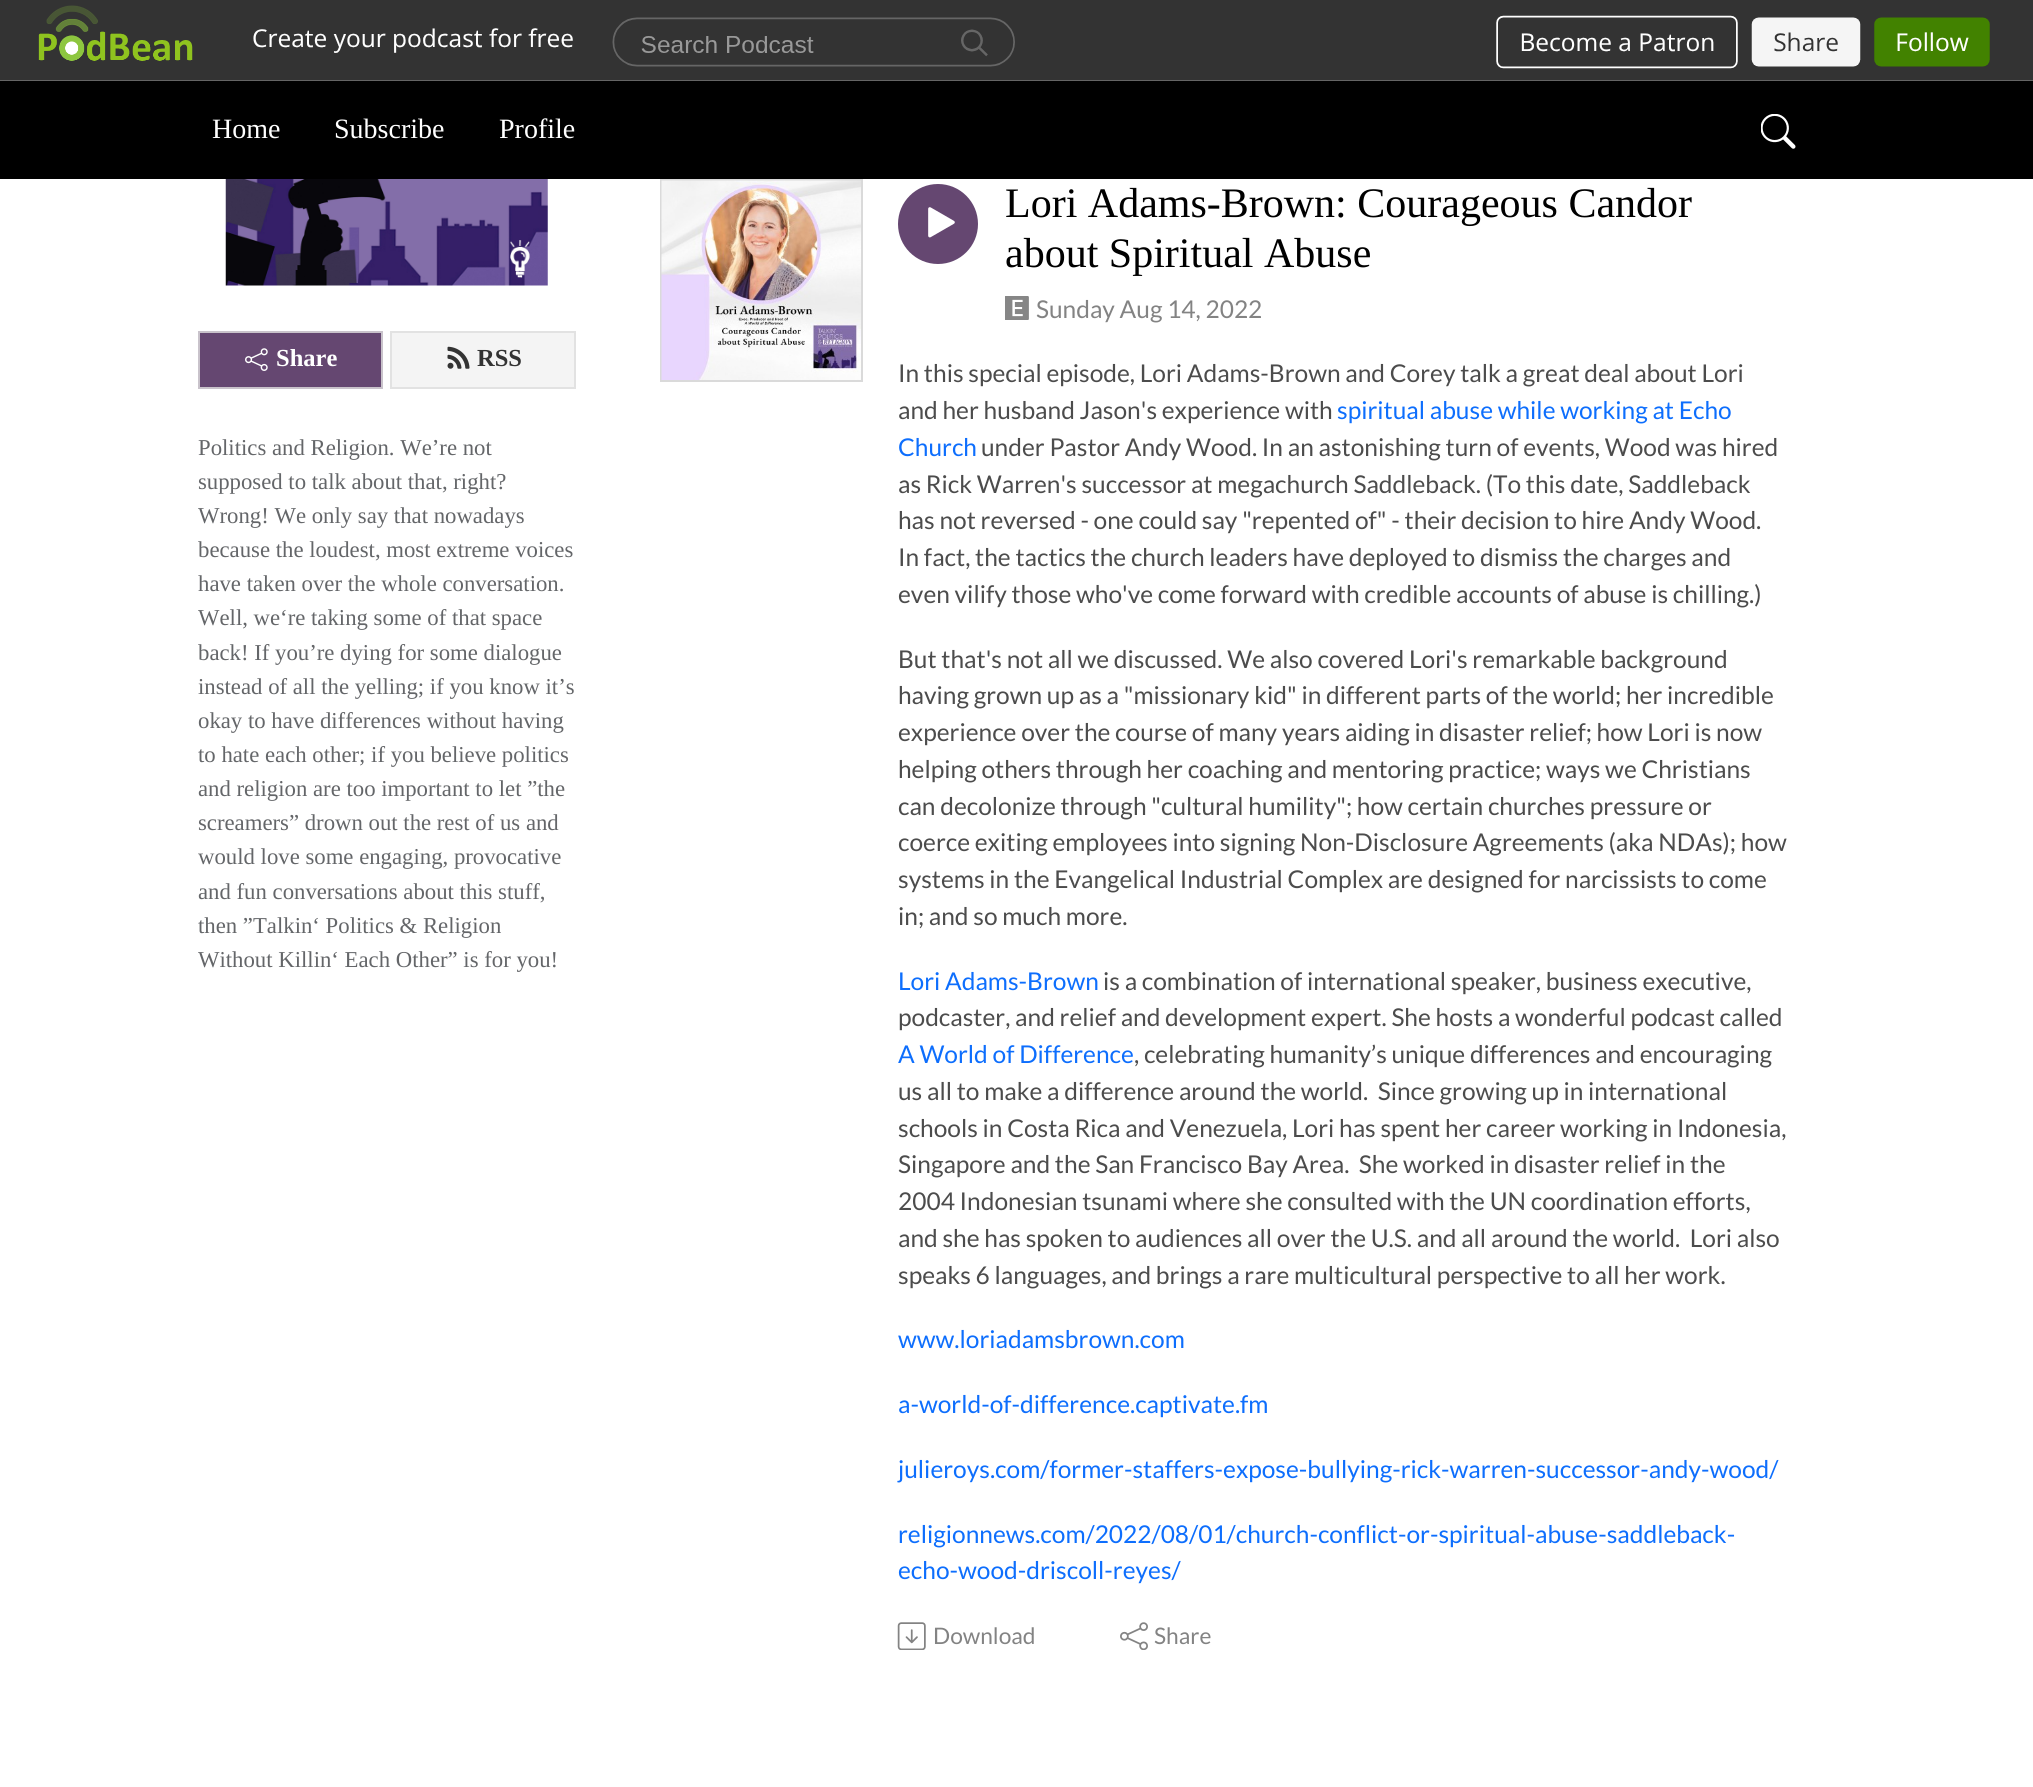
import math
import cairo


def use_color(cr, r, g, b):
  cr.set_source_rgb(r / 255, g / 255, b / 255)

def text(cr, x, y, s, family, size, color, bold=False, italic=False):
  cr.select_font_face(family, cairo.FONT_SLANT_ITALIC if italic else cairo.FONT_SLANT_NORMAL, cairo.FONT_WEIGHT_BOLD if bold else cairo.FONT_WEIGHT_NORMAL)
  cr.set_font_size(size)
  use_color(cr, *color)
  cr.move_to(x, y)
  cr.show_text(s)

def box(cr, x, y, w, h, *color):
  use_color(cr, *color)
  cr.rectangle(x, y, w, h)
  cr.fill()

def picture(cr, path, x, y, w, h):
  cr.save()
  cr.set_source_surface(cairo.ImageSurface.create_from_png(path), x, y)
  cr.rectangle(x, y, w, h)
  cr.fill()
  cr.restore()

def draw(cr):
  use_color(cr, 255, 255, 255)
  cr.paint()
  box(cr, 0, 0, 2033, 5, 51, 51, 51)
  picture(cr, "img_01.png", 0, 5, 2033, 76)
  box(cr, 0, 81, 2033, 98, 0, 0, 0)
  picture(cr, "img_02.png", 1761, 114, 35, 35)
  picture(cr, "img_03.png", 225, 179, 323, 107)
  use_color(cr, 101, 71, 113)
  cr.rectangle(199, 332, 183, 56)
  cr.fill_preserve()
  use_color(cr, 201, 195, 203)
  cr.stroke()
  picture(cr, "img_04.png", 245, 348, 23, 23)
  use_color(cr, 244, 244, 244)
  cr.rectangle(391, 332, 184, 56)
  cr.fill_preserve()
  use_color(cr, 226, 226, 226)
  cr.stroke()
  picture(cr, "img_05.png", 447, 346, 23, 23)
  cr.rectangle(661, 180, 201, 201)
  use_color(cr, 218, 218, 218)
  cr.stroke()
  picture(cr, "img_06.png", 661, 180, 200, 200)
  use_color(cr, 101, 71, 113)
  cr.arc(938, 224, 40, 0, 2 * math.pi)
  cr.fill()
  picture(cr, "img_07.png", 928, 207, 27, 31)
  picture(cr, "img_08.png", 1005, 296, 24, 24)
  picture(cr, "img_09.png", 897, 1622, 29, 28)
  picture(cr, "img_10.png", 1120, 1622, 28, 28)
  text(cr, 212, 138, "Home", "Liberation Serif", 28, (255, 255, 255))
  text(cr, 334, 138, "Subscribe", "Liberation Serif", 28, (255, 255, 255))
  text(cr, 499, 138, "Profile", "Liberation Serif", 28, (255, 255, 255))
  text(cr, 276, 366, "Share", "Liberation Serif", 24.5, (255, 255, 255), bold=True)
  text(cr, 477, 366, "RSS", "Liberation Serif", 24.5, (51, 51, 51), bold=True)
  text(cr, 198, 455, "Politics and Religion. We’re not", "Liberation Serif", 22.75, (100, 102, 105))
  text(cr, 198, 489, "supposed to talk about that, right?", "Liberation Serif", 22.75, (100, 102, 105))
  text(cr, 198, 523, "Wrong! We only say that nowadays", "Liberation Serif", 22.75, (100, 102, 105))
  text(cr, 198, 557, "because the loudest, most extreme voices", "Liberation Serif", 22.75, (100, 102, 105))
  text(cr, 198, 591, "have taken over the whole conversation.", "Liberation Serif", 22.75, (100, 102, 105))
  text(cr, 198, 625, "Well, we‘re taking some of that space", "Liberation Serif", 22.75, (100, 102, 105))
  text(cr, 198, 660, "back! If you’re dying for some dialogue", "Liberation Serif", 22.75, (100, 102, 105))
  text(cr, 198, 694, "instead of all the yelling; if you know it’s", "Liberation Serif", 22.75, (100, 102, 105))
  text(cr, 198, 728, "okay to have differences without having", "Liberation Serif", 22.75, (100, 102, 105))
  text(cr, 198, 762, "to hate each other; if you believe politics", "Liberation Serif", 22.75, (100, 102, 105))
  text(cr, 198, 796, "and religion are too important to let ”the", "Liberation Serif", 22.75, (100, 102, 105))
  text(cr, 198, 830, "screamers” drown out the rest of us and", "Liberation Serif", 22.75, (100, 102, 105))
  text(cr, 198, 864, "would love some engaging, provocative", "Liberation Serif", 22.75, (100, 102, 105))
  text(cr, 198, 899, "and fun conversations about this stuff,", "Liberation Serif", 22.75, (100, 102, 105))
  text(cr, 198, 933, "then ”Talkin‘ Politics & Religion", "Liberation Serif", 22.75, (100, 102, 105))
  text(cr, 198, 967, "Without Killin‘ Each Other” is for you!", "Liberation Serif", 22.75, (100, 102, 105))
  text(cr, 1005, 217, "Lori Adams-Brown: Courageous Candor", "Liberation Serif", 42, (0, 0, 0))
  text(cr, 1005, 267, "about Spiritual Abuse", "Liberation Serif", 42, (0, 0, 0))
  text(cr, 1036, 318, "Sunday Aug 14, 2022", "Lato", 24.5, (131, 131, 131))
  text(cr, 898, 382, "In this special episode, Lori Adams-Brown and Corey talk a great deal about Lori", "Lato", 24.5, (76, 76, 76))
  text(cr, 898, 419, "and her husband Jason's experience with", "Lato", 24.5, (76, 76, 76))
  text(cr, 1337, 419, "spiritual abuse while working at Echo", "Lato", 24.5, (13, 110, 253))
  text(cr, 898, 456, "Church", "Lato", 24.5, (13, 110, 253))
  text(cr, 981, 456, "under Pastor Andy Wood. In an astonishing turn of events, Wood was hired", "Lato", 24.5, (76, 76, 76))
  text(cr, 898, 493, "as Rick Warren's successor at megachurch Saddleback. (To this date, Saddleback", "Lato", 24.5, (76, 76, 76))
  text(cr, 898, 529, "has not reversed - one could say \"repented of\" - their decision to hire Andy Wood.", "Lato", 24.5, (76, 76, 76))
  text(cr, 898, 566, "In fact, the tactics the church leaders have deployed to dismiss the charges and", "Lato", 24.5, (76, 76, 76))
  text(cr, 898, 603, "even vilify those who've come forward with credible accounts of abuse is chilling.)", "Lato", 24.5, (76, 76, 76))
  text(cr, 898, 668, "But that's not all we discussed. We also covered Lori's remarkable background", "Lato", 24.5, (76, 76, 76))
  text(cr, 898, 704, "having grown up as a \"missionary kid\" in different parts of the world; her incredible", "Lato", 24.5, (76, 76, 76))
  text(cr, 898, 741, "experience over the course of many years aiding in disaster relief; how Lori is now", "Lato", 24.5, (76, 76, 76))
  text(cr, 898, 778, "helping others through her coaching and mentoring practice; ways we Christians", "Lato", 24.5, (76, 76, 76))
  text(cr, 898, 815, "can decolonize through \"cultural humility\"; how certain churches pressure or", "Lato", 24.5, (76, 76, 76))
  text(cr, 898, 851, "coerce exiting employees into signing Non-Disclosure Agreements (aka NDAs); how", "Lato", 24.5, (76, 76, 76))
  text(cr, 898, 888, "systems in the Evangelical Industrial Complex are designed for narcissists to come", "Lato", 24.5, (76, 76, 76))
  text(cr, 898, 925, "in; and so much more.", "Lato", 24.5, (76, 76, 76))
  text(cr, 898, 990, "Lori Adams-Brown", "Lato", 24.5, (13, 110, 253))
  text(cr, 1103, 990, "is a combination of international speaker, business executive,", "Lato", 24.5, (76, 76, 76))
  text(cr, 898, 1026, "podcaster, and relief and development expert. She hosts a wonderful podcast called", "Lato", 24.5, (76, 76, 76))
  text(cr, 898, 1063, "A World of Difference", "Lato", 24.5, (13, 110, 253))
  text(cr, 1134, 1063, ", celebrating humanity’s unique differences and encouraging", "Lato", 24.5, (76, 76, 76))
  text(cr, 898, 1100, "us all to make a difference around the world.  Since growing up in international", "Lato", 24.5, (76, 76, 76))
  text(cr, 898, 1137, "schools in Costa Rica and Venezuela, Lori has spent her career working in Indonesia,", "Lato", 24.5, (76, 76, 76))
  text(cr, 898, 1173, "Singapore and the San Francisco Bay Area.  She worked in disaster relief in the", "Lato", 24.5, (76, 76, 76))
  text(cr, 898, 1210, "2004 Indonesian tsunami where she consulted with the UN coordination efforts,", "Lato", 24.5, (76, 76, 76))
  text(cr, 898, 1247, "and she has spoken to audiences all over the U.S. and all around the world.  Lori also", "Lato", 24.5, (76, 76, 76))
  text(cr, 898, 1284, "speaks 6 languages, and brings a rare multicultural perspective to all her work.", "Lato", 24.5, (76, 76, 76))
  text(cr, 898, 1348, "www.loriadamsbrown.com", "Lato", 24.5, (13, 110, 253))
  text(cr, 898, 1413, "a-world-of-difference.captivate.fm", "Lato", 24.5, (13, 110, 253))
  text(cr, 898, 1478, "julieroys.com/former-staffers-expose-bullying-rick-warren-successor-andy-wood/", "Lato", 24.5, (13, 110, 253))
  text(cr, 898, 1543, "religionnews.com/2022/08/01/church-conflict-or-spiritual-abuse-saddleback-", "Lato", 24.5, (13, 110, 253))
  text(cr, 898, 1579, "echo-wood-driscoll-reyes/", "Lato", 24.5, (13, 110, 253))
  text(cr, 933, 1644, "Download", "Lato", 22.75, (131, 131, 131))
  text(cr, 1154, 1644, "Share", "Lato", 22.75, (131, 131, 131))


surface = cairo.ImageSurface(cairo.FORMAT_RGB24, 2033, 1787)
cr = cairo.Context(surface)
options = cairo.FontOptions()
options.set_hint_metrics(cairo.HINT_METRICS_OFF)
options.set_hint_style(cairo.HINT_STYLE_NONE)
cr.set_font_options(options)
cr.set_miter_limit(4)
draw(cr)
surface.write_to_png("out.png")
